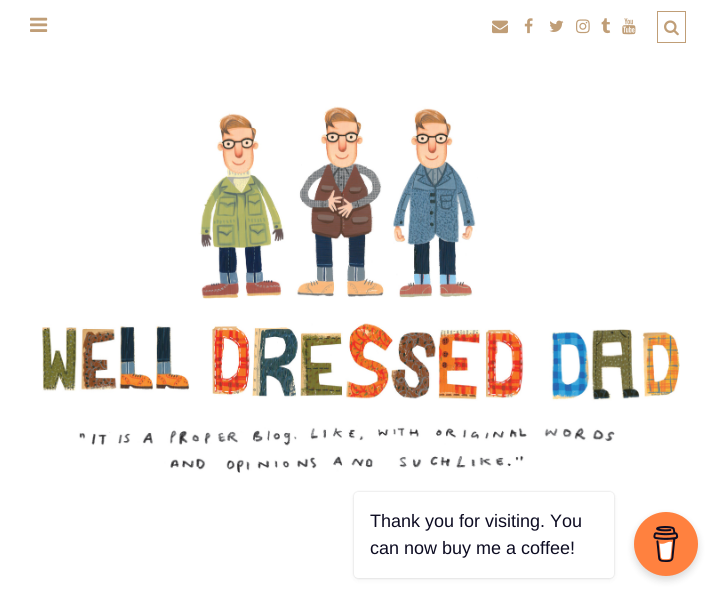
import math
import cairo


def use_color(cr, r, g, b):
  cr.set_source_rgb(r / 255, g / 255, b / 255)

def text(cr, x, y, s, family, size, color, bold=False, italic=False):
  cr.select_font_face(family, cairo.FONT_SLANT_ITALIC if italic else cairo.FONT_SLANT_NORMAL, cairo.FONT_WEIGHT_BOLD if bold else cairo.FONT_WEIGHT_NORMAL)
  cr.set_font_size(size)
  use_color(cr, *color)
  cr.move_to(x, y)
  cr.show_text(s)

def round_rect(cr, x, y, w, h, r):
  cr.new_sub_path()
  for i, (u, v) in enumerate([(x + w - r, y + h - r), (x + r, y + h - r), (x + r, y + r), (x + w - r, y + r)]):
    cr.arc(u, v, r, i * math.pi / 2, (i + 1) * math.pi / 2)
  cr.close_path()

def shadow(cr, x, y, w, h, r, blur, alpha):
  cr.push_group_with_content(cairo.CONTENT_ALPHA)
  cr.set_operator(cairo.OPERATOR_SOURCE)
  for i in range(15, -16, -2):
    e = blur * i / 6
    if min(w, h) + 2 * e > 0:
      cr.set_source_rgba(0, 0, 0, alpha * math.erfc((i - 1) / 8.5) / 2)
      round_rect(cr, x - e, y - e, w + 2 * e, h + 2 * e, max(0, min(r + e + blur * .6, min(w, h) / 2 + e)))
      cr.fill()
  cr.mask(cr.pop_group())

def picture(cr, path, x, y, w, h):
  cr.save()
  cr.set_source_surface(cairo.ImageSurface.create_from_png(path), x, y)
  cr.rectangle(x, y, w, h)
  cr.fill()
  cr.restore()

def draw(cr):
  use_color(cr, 255, 255, 255)
  cr.paint()
  picture(cr, "img_01.png", 30, 17, 18, 15)
  picture(cr, "img_02.png", 492, 20, 16, 14)
  picture(cr, "img_03.png", 524, 18, 9, 16)
  picture(cr, "img_04.png", 549, 20, 15, 12)
  picture(cr, "img_05.png", 576, 19, 14, 15)
  picture(cr, "img_06.png", 601, 18, 10, 16)
  picture(cr, "img_07.png", 622, 18, 14, 17)
  cr.rectangle(657.5, 11.5, 28, 31)
  use_color(cr, 192, 158, 119)
  cr.set_line_width(1)
  cr.stroke()
  picture(cr, "img_08.png", 664, 20, 15, 16)
  picture(cr, "img_09.png", 42, 106, 638, 367)
  use_color(cr, 0, 0, 0)
  shadow(cr, 354, 492, 260, 86, 4, 1, 0.15)
  shadow(cr, 354, 494, 260, 86, 4, 2.5, 0.05)
  use_color(cr, 255, 255, 255)
  round_rect(cr, 354, 492, 260, 86, 4)
  cr.fill()
  use_color(cr, 0, 0, 0)
  shadow(cr, 634, 516, 64, 64, 32, 4, 0.15)
  use_color(cr, 255, 129, 63)
  cr.arc(666, 544, 32, 0, 2 * math.pi)
  cr.fill()
  picture(cr, "img_10.png", 653, 526, 26, 36)
  text(cr, 370, 527, "Thank you for visiting. You", "Liberation Sans", 18, (13, 12, 34))
  text(cr, 370, 554, "can now buy me a coffee!", "Liberation Sans", 18, (13, 12, 34))


surface = cairo.ImageSurface(cairo.FORMAT_RGB24, 716, 594)
cr = cairo.Context(surface)
options = cairo.FontOptions()
options.set_hint_metrics(cairo.HINT_METRICS_OFF)
options.set_hint_style(cairo.HINT_STYLE_NONE)
cr.set_font_options(options)
cr.set_miter_limit(4)
draw(cr)
surface.write_to_png("out.png")
